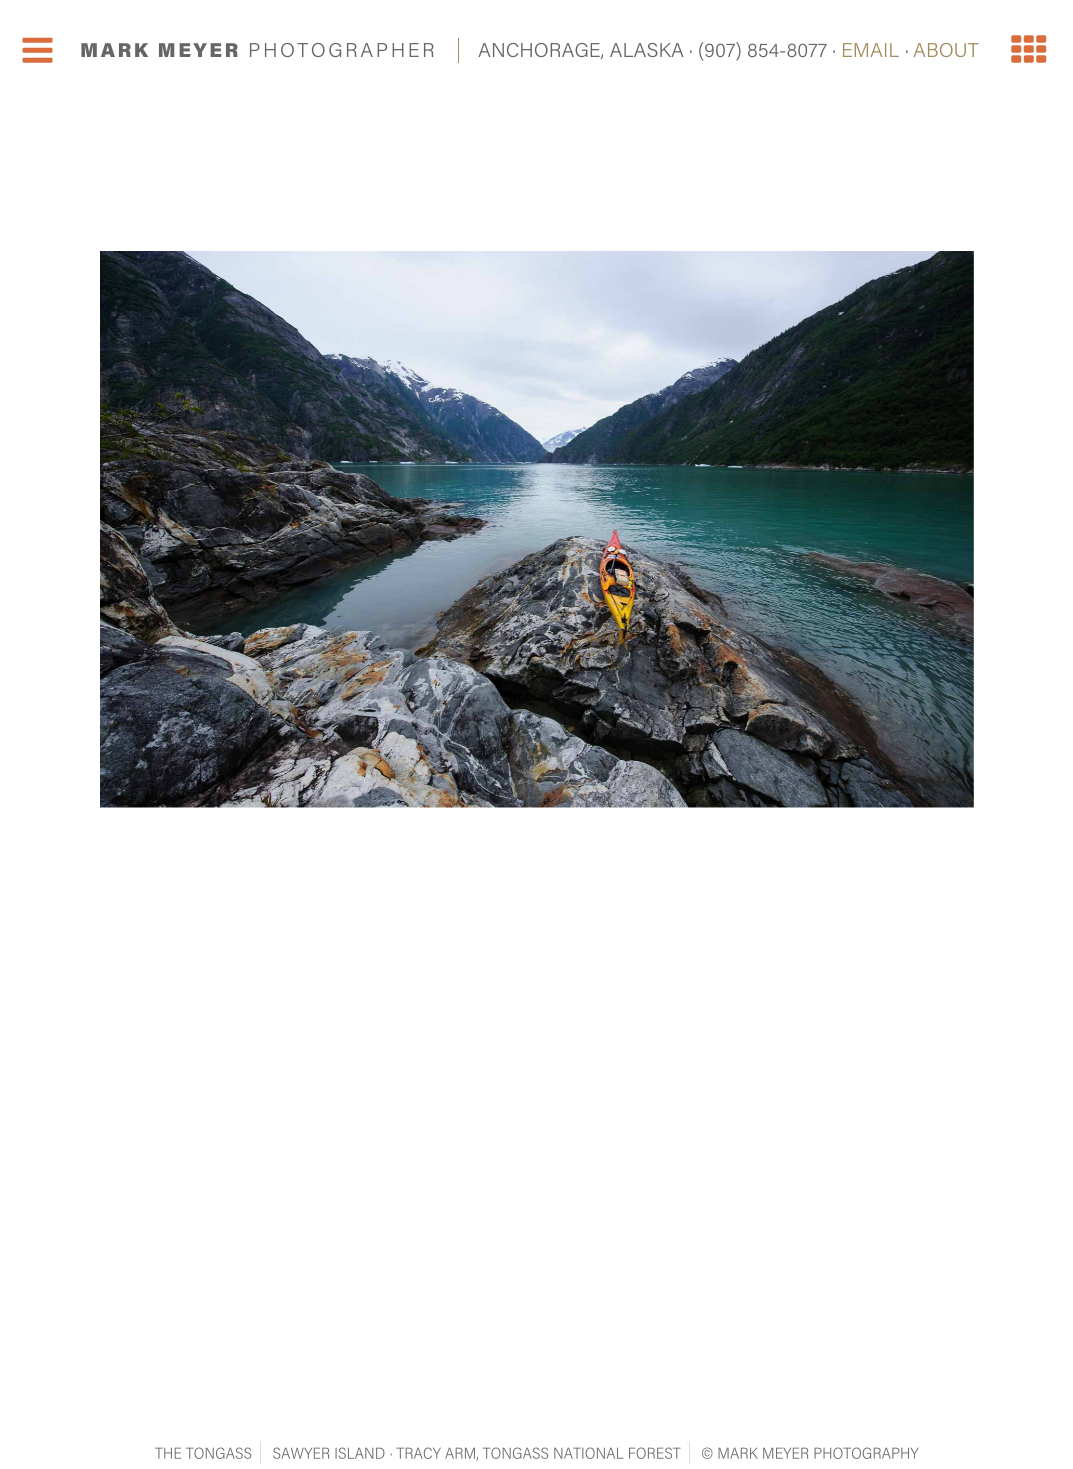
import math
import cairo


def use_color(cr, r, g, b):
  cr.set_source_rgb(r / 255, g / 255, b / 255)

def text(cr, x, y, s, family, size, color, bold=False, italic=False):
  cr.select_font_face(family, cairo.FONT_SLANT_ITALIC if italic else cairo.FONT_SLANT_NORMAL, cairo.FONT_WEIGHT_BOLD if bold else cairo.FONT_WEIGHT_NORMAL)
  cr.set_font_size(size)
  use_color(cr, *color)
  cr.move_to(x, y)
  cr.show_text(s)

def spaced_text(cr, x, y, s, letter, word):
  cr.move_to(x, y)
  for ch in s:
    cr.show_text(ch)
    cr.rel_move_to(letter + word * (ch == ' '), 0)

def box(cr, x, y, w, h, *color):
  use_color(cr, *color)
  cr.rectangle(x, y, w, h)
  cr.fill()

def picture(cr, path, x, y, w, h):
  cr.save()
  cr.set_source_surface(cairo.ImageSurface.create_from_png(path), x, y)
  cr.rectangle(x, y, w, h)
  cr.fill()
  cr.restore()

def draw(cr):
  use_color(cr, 255, 255, 255)
  cr.paint()
  picture(cr, "img_01.png", 22, 37, 31, 26)
  box(cr, 458, 38, 1, 25, 163, 141, 94)
  picture(cr, "img_02.png", 1011, 35, 36, 28)
  picture(cr, "img_03.png", 100, 251, 874, 557)
  box(cr, 260, 1441, 1, 23, 221, 221, 221)
  picture(cr, "img_04.png", 155, 1447, 97, 12)
  box(cr, 689, 1441, 1, 23, 221, 221, 221)
  picture(cr, "img_05.png", 273, 1447, 112, 12)
  picture(cr, "img_06.png", 390, 1447, 291, 14)
  picture(cr, "img_07.png", 702, 1447, 217, 12)
  cr.select_font_face("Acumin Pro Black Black")
  cr.set_font_size(20)
  use_color(cr, 102, 102, 102)
  spaced_text(cr, 80, 57, "MARK MEYER", 2.5, 0)
  cr.select_font_face("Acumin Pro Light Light")
  spaced_text(cr, 248, 57, "PHOTOGRAPHER", 2.5, 0)
  text(cr, 478, 57, "ANCHORAGE, ALASKA · (907) 854-8077 ·", "Acumin Pro Light Light", 20, (102, 102, 102))
  text(cr, 841, 57, "EMAIL", "Acumin Pro Light Light", 20, (163, 141, 94))
  text(cr, 905, 57, "·", "Acumin Pro Light Light", 20, (102, 102, 102))
  text(cr, 913, 57, "ABOUT", "Acumin Pro Light Light", 20, (163, 141, 94))


surface = cairo.ImageSurface(cairo.FORMAT_RGB24, 1073, 1469)
cr = cairo.Context(surface)
options = cairo.FontOptions()
options.set_hint_metrics(cairo.HINT_METRICS_OFF)
options.set_hint_style(cairo.HINT_STYLE_NONE)
cr.set_font_options(options)
cr.set_miter_limit(4)
draw(cr)
surface.write_to_png("out.png")
